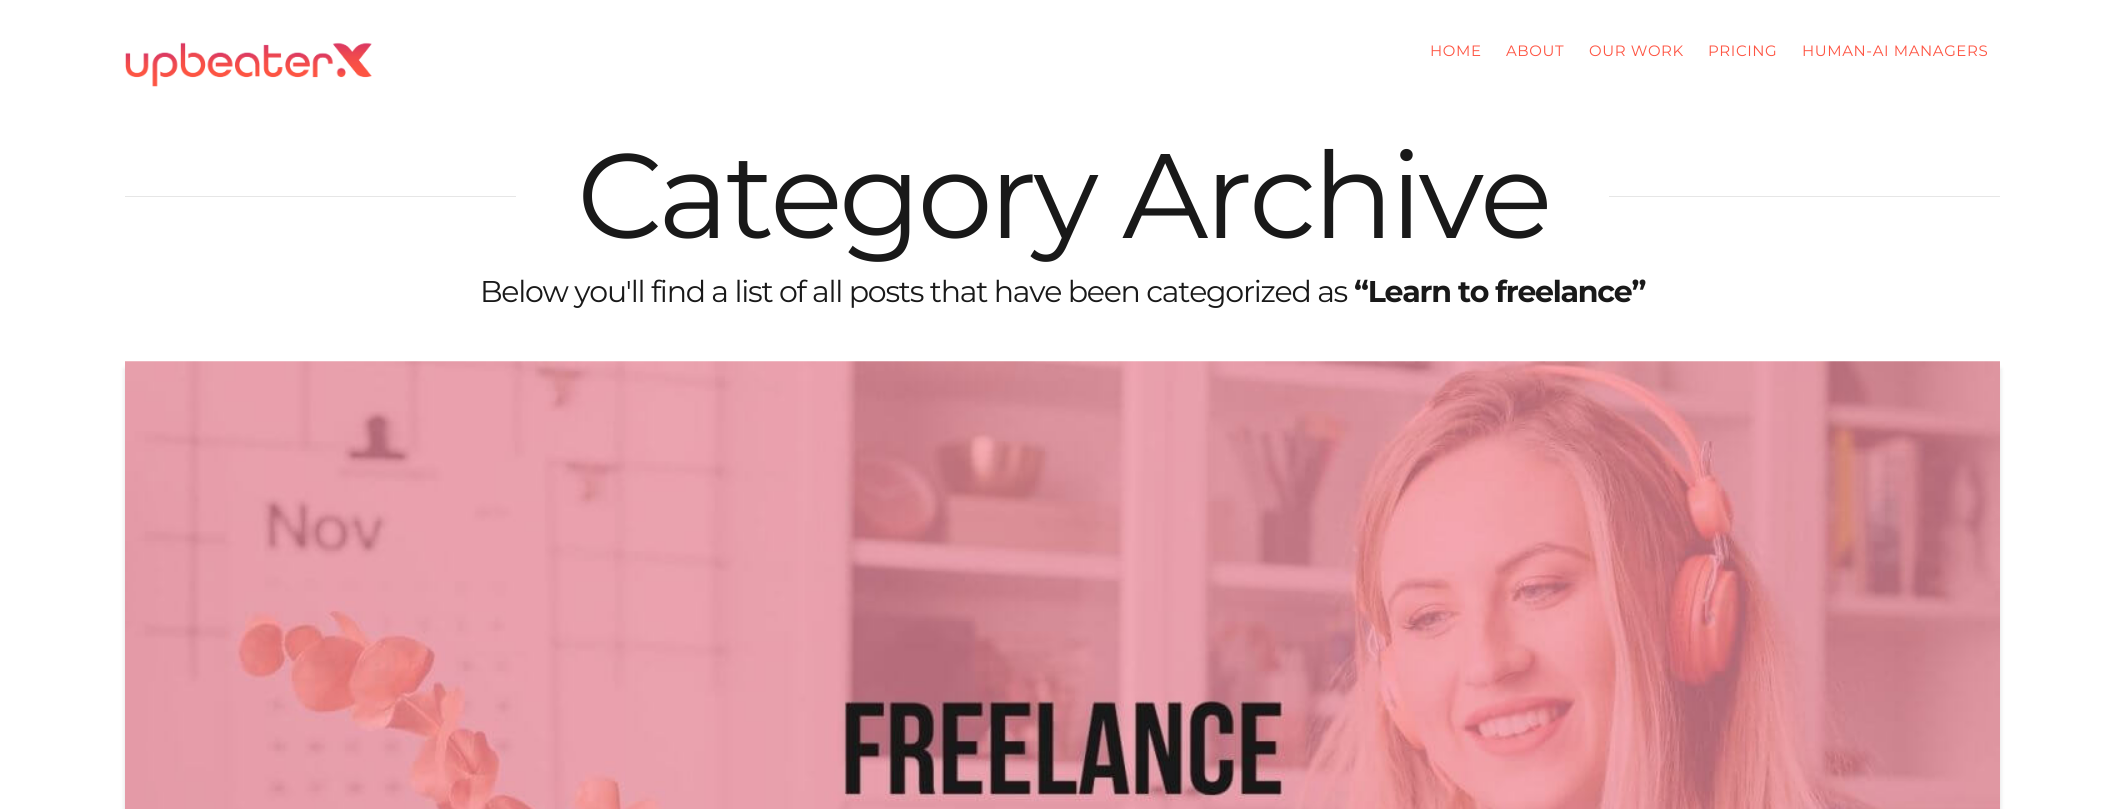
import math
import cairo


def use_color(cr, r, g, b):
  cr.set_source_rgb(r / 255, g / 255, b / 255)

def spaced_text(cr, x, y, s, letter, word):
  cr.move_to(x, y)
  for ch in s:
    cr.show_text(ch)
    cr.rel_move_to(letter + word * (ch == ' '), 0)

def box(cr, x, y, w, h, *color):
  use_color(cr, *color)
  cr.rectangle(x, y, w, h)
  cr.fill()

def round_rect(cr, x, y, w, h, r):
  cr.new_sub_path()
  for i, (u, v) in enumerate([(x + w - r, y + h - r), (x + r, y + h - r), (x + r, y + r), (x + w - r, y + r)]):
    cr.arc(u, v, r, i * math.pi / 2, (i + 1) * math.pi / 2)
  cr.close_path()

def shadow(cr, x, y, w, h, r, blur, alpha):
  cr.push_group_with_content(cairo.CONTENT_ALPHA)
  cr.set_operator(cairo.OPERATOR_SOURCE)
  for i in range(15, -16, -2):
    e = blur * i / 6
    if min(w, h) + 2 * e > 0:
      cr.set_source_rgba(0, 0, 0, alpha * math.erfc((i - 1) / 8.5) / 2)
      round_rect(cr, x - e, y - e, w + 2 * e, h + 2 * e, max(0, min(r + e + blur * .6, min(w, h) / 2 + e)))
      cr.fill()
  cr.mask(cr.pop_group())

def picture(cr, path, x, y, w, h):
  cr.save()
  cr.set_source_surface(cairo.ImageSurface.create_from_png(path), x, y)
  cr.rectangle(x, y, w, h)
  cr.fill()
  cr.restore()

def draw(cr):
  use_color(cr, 255, 255, 255)
  cr.paint()
  picture(cr, "img_01.png", 125, 42, 247, 45)
  box(cr, 125, 196, 391, 1, 230, 230, 230)
  box(cr, 1609, 196, 391, 1, 230, 230, 230)
  use_color(cr, 0, 0, 0)
  shadow(cr, 125, 369, 1865, 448, 0, 2.5, 0.13)
  shadow(cr, 135, 369, 1865, 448, 0, 2.5, 0.13)
  picture(cr, "img_02.png", 125, 361, 1875, 448)
  cr.select_font_face("Montserrat")
  cr.set_font_size(15)
  use_color(cr, 254, 84, 66)
  spaced_text(cr, 1430, 56, "HOME", 0.6, 0)
  spaced_text(cr, 1506, 56, "ABOUT", 0.6, 0)
  spaced_text(cr, 1589, 56, "OUR WORK", 0.6, 0)
  spaced_text(cr, 1708, 56, "PRICING", 0.6, 0)
  spaced_text(cr, 1802, 56, "HUMAN-AI MANAGERS", 0.6, 0)
  cr.set_font_size(120)
  use_color(cr, 25, 25, 25)
  spaced_text(cr, 577, 238, "Category Archive", -3.75, 0)
  cr.set_font_size(30)
  spaced_text(cr, 480, 302, "Below you'll find a list of all posts that have been categorized as", -1.25, 0)
  cr.select_font_face("Montserrat", cairo.FONT_SLANT_NORMAL, cairo.FONT_WEIGHT_BOLD)
  spaced_text(cr, 1354, 302, "“Learn to freelance”", -1.25, 0)


surface = cairo.ImageSurface(cairo.FORMAT_RGB24, 2125, 809)
cr = cairo.Context(surface)
options = cairo.FontOptions()
options.set_hint_metrics(cairo.HINT_METRICS_OFF)
options.set_hint_style(cairo.HINT_STYLE_NONE)
cr.set_font_options(options)
cr.set_miter_limit(4)
draw(cr)
surface.write_to_png("out.png")
